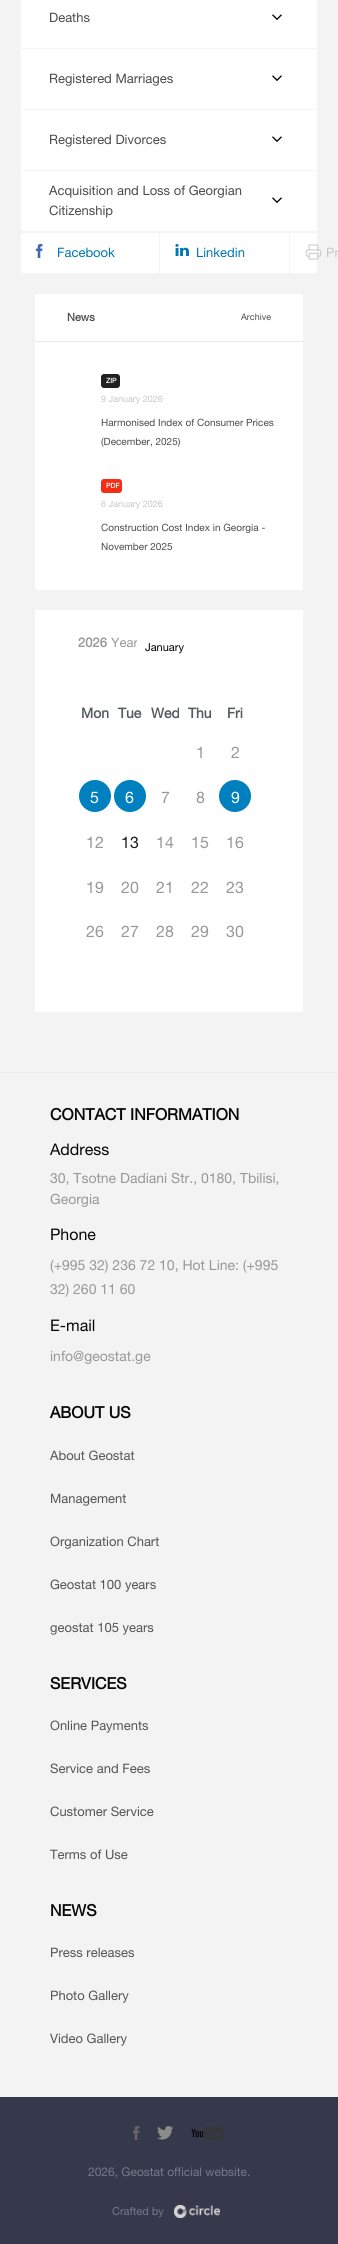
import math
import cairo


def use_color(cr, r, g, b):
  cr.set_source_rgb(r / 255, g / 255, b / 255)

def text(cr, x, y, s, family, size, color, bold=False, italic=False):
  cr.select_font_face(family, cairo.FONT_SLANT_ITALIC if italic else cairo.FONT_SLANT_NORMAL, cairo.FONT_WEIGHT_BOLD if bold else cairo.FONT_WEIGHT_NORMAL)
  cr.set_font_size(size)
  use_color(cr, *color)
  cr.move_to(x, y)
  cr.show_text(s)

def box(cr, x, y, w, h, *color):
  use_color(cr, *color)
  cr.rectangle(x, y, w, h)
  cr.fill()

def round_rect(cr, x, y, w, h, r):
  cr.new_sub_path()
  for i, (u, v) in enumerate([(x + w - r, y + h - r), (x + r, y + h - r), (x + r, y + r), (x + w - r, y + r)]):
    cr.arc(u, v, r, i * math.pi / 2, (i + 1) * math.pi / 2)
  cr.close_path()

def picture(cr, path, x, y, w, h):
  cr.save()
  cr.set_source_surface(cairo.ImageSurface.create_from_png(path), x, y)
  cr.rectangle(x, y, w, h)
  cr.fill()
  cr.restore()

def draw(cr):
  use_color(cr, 243, 243, 243)
  cr.paint()
  use_color(cr, 255, 255, 255)
  round_rect(cr, 20.5, -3.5, 297, 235, 2.5)
  cr.fill_preserve()
  use_color(cr, 244, 244, 244)
  cr.set_line_width(1)
  cr.stroke()
  picture(cr, "img_01.png", 272, 14, 10, 6)
  box(cr, 21, 48, 296, 1, 244, 244, 244)
  picture(cr, "img_01.png", 272, 75, 10, 6)
  box(cr, 21, 109, 296, 1, 244, 244, 244)
  picture(cr, "img_01.png", 272, 136, 10, 6)
  box(cr, 21, 170, 296, 1, 244, 244, 244)
  picture(cr, "img_01.png", 272, 197, 10, 6)
  use_color(cr, 255, 255, 255)
  cr.new_path()
  cr.move_to(23, 232.5)
  cr.line_to(317.5, 232.5)
  cr.line_to(317.5, 271)
  cr.curve_to(317.5, 272.5, 316.5, 273.5, 315, 273.5)
  cr.line_to(23, 273.5)
  cr.curve_to(21.5, 273.5, 20.5, 272.5, 20.5, 271)
  cr.line_to(20.5, 235)
  cr.curve_to(20.5, 233.5, 21.5, 232.5, 23, 232.5)
  cr.close_path()
  cr.fill_preserve()
  use_color(cr, 244, 244, 244)
  cr.stroke()
  box(cr, 159, 233, 1, 40, 244, 244, 244)
  picture(cr, "img_02.png", 36, 244, 7, 14)
  box(cr, 289, 233, 1, 40, 244, 244, 244)
  picture(cr, "img_03.png", 175, 244, 14, 12)
  picture(cr, "img_04.png", 305, 244, 17, 16)
  use_color(cr, 255, 255, 255)
  round_rect(cr, 35, 294, 268, 296, 2)
  cr.fill()
  box(cr, 35, 341, 268, 1, 233, 233, 233)
  use_color(cr, 33, 32, 32)
  round_rect(cr, 101, 374, 19, 14, 3)
  cr.fill()
  use_color(cr, 243, 46, 22)
  round_rect(cr, 101, 479, 21, 14, 3)
  cr.fill()
  box(cr, 35, 610, 268, 402, 255, 255, 255)
  use_color(cr, 0, 128, 190)
  cr.arc(95, 796, 16, 0, 2 * math.pi)
  cr.fill()
  cr.arc(130, 796, 16, 0, 2 * math.pi)
  cr.fill()
  cr.arc(235, 796, 16, 0, 2 * math.pi)
  cr.fill()
  box(cr, 0, 1072, 338, 1, 233, 233, 233)
  box(cr, 0, 2097, 338, 147, 54, 57, 75)
  picture(cr, "img_05.png", 133, 2126, 7, 14)
  picture(cr, "img_06.png", 157, 2126, 17, 14)
  picture(cr, "img_07.png", 191, 2127, 32, 13)
  picture(cr, "img_08.png", 174, 2205, 46, 13)
  text(cr, 49, 22, "Deaths", "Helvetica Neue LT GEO", 13, (76, 76, 76))
  text(cr, 49, 83, "Registered Marriages", "Helvetica Neue LT GEO", 13, (76, 76, 76))
  text(cr, 49, 144, "Registered Divorces", "Helvetica Neue LT GEO", 13, (76, 76, 76))
  text(cr, 49, 195, "Acquisition and Loss of Georgian", "Helvetica Neue LT GEO", 13, (76, 76, 76))
  text(cr, 49, 215, "Citizenship", "Helvetica Neue LT GEO", 13, (76, 76, 76))
  text(cr, 57, 257, "Facebook", "Helvetica Neue LT GEO", 13, (0, 119, 181))
  text(cr, 196, 257, "Linkedin", "Helvetica Neue LT GEO", 13, (0, 119, 181))
  text(cr, 326, 257, "Pr", "Helvetica Neue LT GEO", 13, (199, 199, 199))
  text(cr, 67, 321, "News", "Helvetica Neue LT GEO", 11, (76, 76, 76), bold=True)
  text(cr, 241, 320, "Archive", "Helvetica Neue LT GEO", 9, (76, 76, 76))
  text(cr, 106, 383, "ZIP", "Helvetica Neue LT GEO", 7, (255, 255, 255), bold=True)
  text(cr, 101, 402, "9 January 2026", "Helvetica Neue LT GEO", 9, (199, 199, 199))
  text(cr, 101, 426, "Harmonised Index of Consumer Prices", "Helvetica Neue LT GEO", 10, (76, 76, 76))
  text(cr, 101, 445, "(December, 2025)", "Helvetica Neue LT GEO", 10, (76, 76, 76))
  text(cr, 106, 488, "PDF", "Helvetica Neue LT GEO", 7, (255, 255, 255), bold=True)
  text(cr, 101, 507, "6 January 2026", "Helvetica Neue LT GEO", 9, (199, 199, 199))
  text(cr, 101, 531, "Construction Cost Index in Georgia -", "Helvetica Neue LT GEO", 10, (76, 76, 76))
  text(cr, 101, 550, "November 2025", "Helvetica Neue LT GEO", 10, (76, 76, 76))
  text(cr, 78, 647, "2026", "Helvetica Neue LT GEO", 13, (152, 152, 152), bold=True)
  text(cr, 111, 647, "Year", "Helvetica Neue LT GEO", 13, (152, 152, 152))
  use_color(cr, 255, 255, 255)
  round_rect(cr, 137, 633, 121, 28, 4)
  cr.fill()
  text(cr, 145, 651, "January", "Helvetica Neue LT GEO", 11, (0, 0, 0))
  text(cr, 81, 718, "Mon", "Helvetica Neue LT GEO", 14, (84, 90, 92), bold=True)
  text(cr, 118, 718, "Tue", "Helvetica Neue LT GEO", 14, (84, 90, 92), bold=True)
  text(cr, 151, 718, "Wed", "Helvetica Neue LT GEO", 14, (84, 90, 92), bold=True)
  text(cr, 188, 718, "Thu", "Helvetica Neue LT GEO", 14, (84, 90, 92), bold=True)
  text(cr, 227, 718, "Fri", "Helvetica Neue LT GEO", 14, (84, 90, 92), bold=True)
  text(cr, 196, 758, "1", "Helvetica Neue LT GEO", 16, (152, 152, 152))
  text(cr, 231, 758, "2", "Helvetica Neue LT GEO", 16, (152, 152, 152))
  text(cr, 90, 803, "5", "Helvetica Neue LT GEO", 16, (255, 255, 255))
  text(cr, 125, 803, "6", "Helvetica Neue LT GEO", 16, (255, 255, 255))
  text(cr, 161, 803, "7", "Helvetica Neue LT GEO", 16, (152, 152, 152))
  text(cr, 196, 803, "8", "Helvetica Neue LT GEO", 16, (152, 152, 152))
  text(cr, 231, 803, "9", "Helvetica Neue LT GEO", 16, (255, 255, 255))
  text(cr, 86, 848, "12", "Helvetica Neue LT GEO", 16, (152, 152, 152))
  text(cr, 121, 848, "13", "Helvetica Neue LT GEO", 16, (26, 26, 26))
  text(cr, 156, 848, "14", "Helvetica Neue LT GEO", 16, (152, 152, 152))
  text(cr, 191, 848, "15", "Helvetica Neue LT GEO", 16, (152, 152, 152))
  text(cr, 226, 848, "16", "Helvetica Neue LT GEO", 16, (152, 152, 152))
  text(cr, 86, 893, "19", "Helvetica Neue LT GEO", 16, (152, 152, 152))
  text(cr, 121, 893, "20", "Helvetica Neue LT GEO", 16, (152, 152, 152))
  text(cr, 156, 893, "21", "Helvetica Neue LT GEO", 16, (152, 152, 152))
  text(cr, 191, 893, "22", "Helvetica Neue LT GEO", 16, (152, 152, 152))
  text(cr, 226, 893, "23", "Helvetica Neue LT GEO", 16, (152, 152, 152))
  text(cr, 86, 937, "26", "Helvetica Neue LT GEO", 16, (152, 152, 152))
  text(cr, 121, 937, "27", "Helvetica Neue LT GEO", 16, (152, 152, 152))
  text(cr, 156, 937, "28", "Helvetica Neue LT GEO", 16, (152, 152, 152))
  text(cr, 191, 937, "29", "Helvetica Neue LT GEO", 16, (152, 152, 152))
  text(cr, 226, 937, "30", "Helvetica Neue LT GEO", 16, (152, 152, 152))
  text(cr, 50, 1120, "CONTACT INFORMATION", "Helvetica Neue LT GEO", 16, (8, 7, 7), bold=True)
  text(cr, 50, 1155, "Address", "Helvetica Neue LT GEO", 16, (8, 7, 7))
  text(cr, 50, 1183, "30, Tsotne Dadiani Str., 0180, Tbilisi,", "Helvetica Neue LT GEO", 14, (152, 152, 152))
  text(cr, 50, 1204, "Georgia", "Helvetica Neue LT GEO", 14, (152, 152, 152))
  text(cr, 50, 1240, "Phone", "Helvetica Neue LT GEO", 16, (8, 7, 7))
  text(cr, 50, 1270, "(+995 32) 236 72 10, Hot Line: (+995", "Helvetica Neue LT GEO", 14, (152, 152, 152))
  text(cr, 50, 1294, "32) 260 11 60", "Helvetica Neue LT GEO", 14, (152, 152, 152))
  text(cr, 50, 1331, "E-mail", "Helvetica Neue LT GEO", 16, (8, 7, 7))
  text(cr, 50, 1361, "info@geostat.ge", "Helvetica Neue LT GEO", 14, (152, 152, 152))
  text(cr, 50, 1418, "ABOUT US", "Helvetica Neue LT GEO", 16, (8, 7, 7), bold=True)
  text(cr, 50, 1460, "About Geostat", "Helvetica Neue LT GEO", 13, (85, 85, 85))
  text(cr, 50, 1503, "Management", "Helvetica Neue LT GEO", 13, (85, 85, 85))
  text(cr, 50, 1546, "Organization Chart", "Helvetica Neue LT GEO", 13, (85, 85, 85))
  text(cr, 50, 1589, "Geostat 100 years", "Helvetica Neue LT GEO", 13, (85, 85, 85))
  text(cr, 50, 1632, "geostat 105 years", "Helvetica Neue LT GEO", 13, (85, 85, 85))
  text(cr, 50, 1689, "SERVICES", "Helvetica Neue LT GEO", 16, (8, 7, 7), bold=True)
  text(cr, 50, 1730, "Online Payments", "Helvetica Neue LT GEO", 13, (85, 85, 85))
  text(cr, 50, 1773, "Service and Fees", "Helvetica Neue LT GEO", 13, (85, 85, 85))
  text(cr, 50, 1816, "Customer Service", "Helvetica Neue LT GEO", 13, (85, 85, 85))
  text(cr, 50, 1859, "Terms of Use", "Helvetica Neue LT GEO", 13, (85, 85, 85))
  text(cr, 50, 1916, "NEWS", "Helvetica Neue LT GEO", 16, (8, 7, 7), bold=True)
  text(cr, 50, 1957, "Press releases", "Helvetica Neue LT GEO", 13, (85, 85, 85))
  text(cr, 50, 2000, "Photo Gallery", "Helvetica Neue LT GEO", 13, (85, 85, 85))
  text(cr, 50, 2043, "Video Gallery", "Helvetica Neue LT GEO", 13, (85, 85, 85))
  text(cr, 88, 2176, "2026, Geostat official website.", "Helvetica Neue LT GEO", 12, (118, 121, 137))
  text(cr, 112, 2215, "Crafted by", "Helvetica Neue LT GEO", 11, (118, 121, 137))


surface = cairo.ImageSurface(cairo.FORMAT_RGB24, 338, 2244)
cr = cairo.Context(surface)
options = cairo.FontOptions()
options.set_hint_metrics(cairo.HINT_METRICS_OFF)
options.set_hint_style(cairo.HINT_STYLE_NONE)
cr.set_font_options(options)
cr.set_miter_limit(4)
draw(cr)
surface.write_to_png("out.png")
